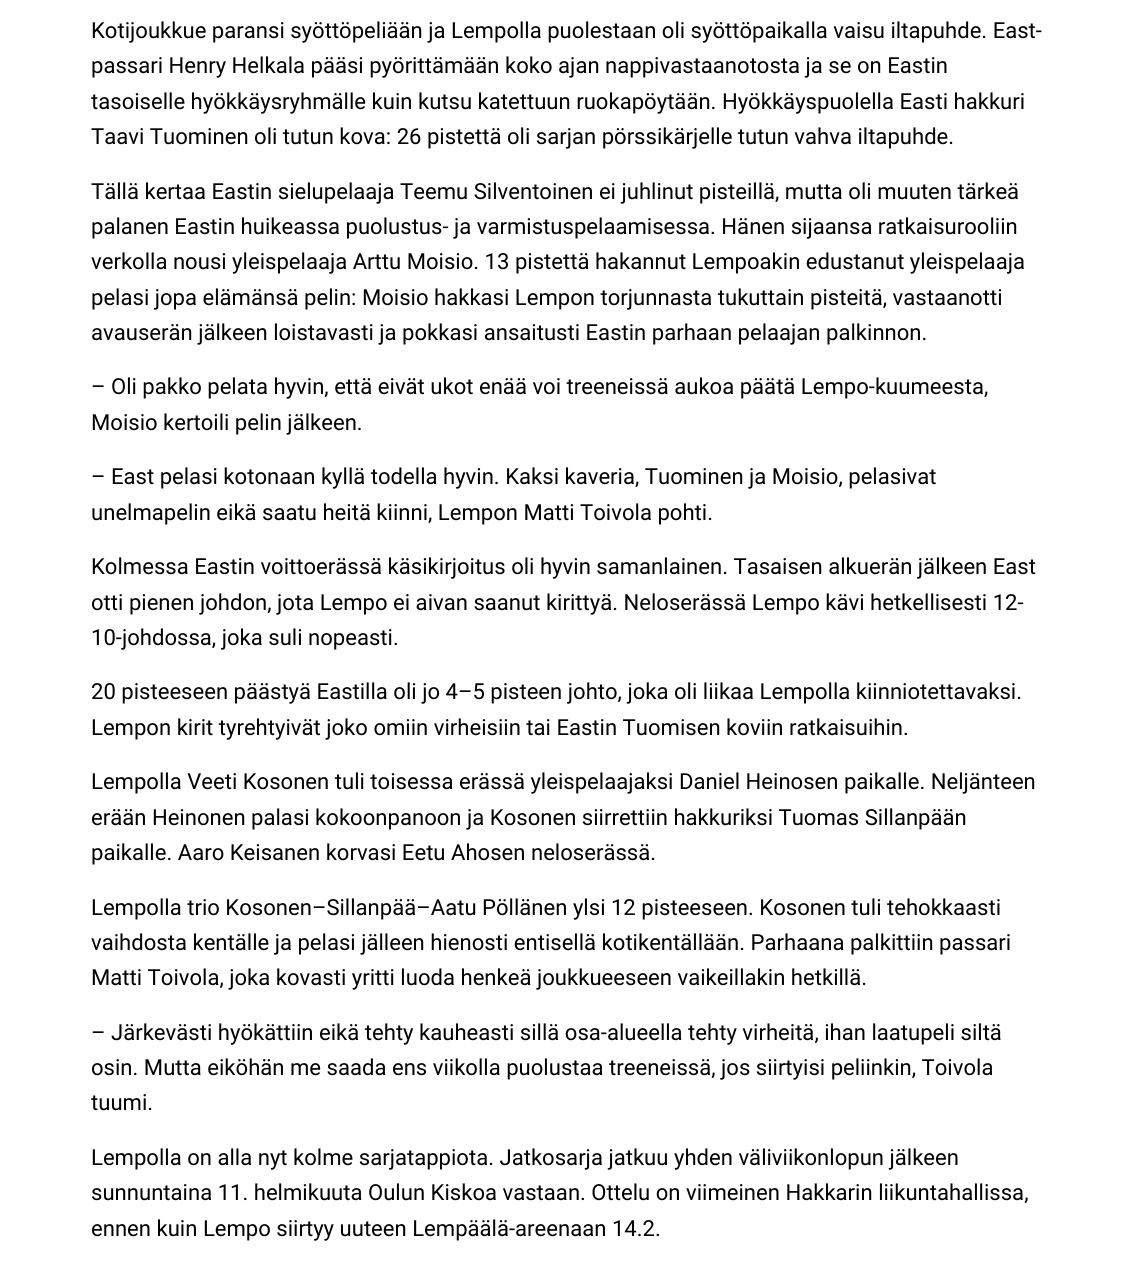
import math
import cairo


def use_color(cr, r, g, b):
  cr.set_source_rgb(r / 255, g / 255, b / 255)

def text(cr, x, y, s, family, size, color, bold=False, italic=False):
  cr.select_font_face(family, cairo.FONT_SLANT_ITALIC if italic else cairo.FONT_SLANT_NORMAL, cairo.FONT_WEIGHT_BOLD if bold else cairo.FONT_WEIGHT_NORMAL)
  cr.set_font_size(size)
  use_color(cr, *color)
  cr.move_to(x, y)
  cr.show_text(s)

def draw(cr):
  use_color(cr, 255, 255, 255)
  cr.paint()
  text(cr, 91, 38, "Kotijoukkue paransi syöttöpeliään ja Lempolla puolestaan oli syöttöpaikalla vaisu iltapuhde. East-", "Roboto", 22.1, (0, 0, 0))
  text(cr, 91, 73, "passari Henry Helkala pääsi pyörittämään koko ajan nappivastaanotosta ja se on Eastin", "Roboto", 22.1, (0, 0, 0))
  text(cr, 91, 109, "tasoiselle hyökkäysryhmälle kuin kutsu katettuun ruokapöytään. Hyökkäyspuolella Easti hakkuri", "Roboto", 22.1, (0, 0, 0))
  text(cr, 91, 144, "Taavi Tuominen oli tutun kova: 26 pistettä oli sarjan pörssikärjelle tutun vahva iltapuhde.", "Roboto", 22.1, (0, 0, 0))
  text(cr, 91, 199, "Tällä kertaa Eastin sielupelaaja Teemu Silventoinen ei juhlinut pisteillä, mutta oli muuten tärkeä", "Roboto", 22.1, (0, 0, 0))
  text(cr, 91, 234, "palanen Eastin huikeassa puolustus- ja varmistuspelaamisessa. Hänen sijaansa ratkaisurooliin", "Roboto", 22.1, (0, 0, 0))
  text(cr, 91, 269, "verkolla nousi yleispelaaja Arttu Moisio. 13 pistettä hakannut Lempoakin edustanut yleispelaaja", "Roboto", 22.1, (0, 0, 0))
  text(cr, 91, 305, "pelasi jopa elämänsä pelin: Moisio hakkasi Lempon torjunnasta tukuttain pisteitä, vastaanotti", "Roboto", 22.1, (0, 0, 0))
  text(cr, 91, 340, "avauserän jälkeen loistavasti ja pokkasi ansaitusti Eastin parhaan pelaajan palkinnon.", "Roboto", 22.1, (0, 0, 0))
  text(cr, 91, 394, "– Oli pakko pelata hyvin, että eivät ukot enää voi treeneissä aukoa päätä Lempo-kuumeesta,", "Roboto", 22.1, (0, 0, 0))
  text(cr, 91, 430, "Moisio kertoili pelin jälkeen.", "Roboto", 22.1, (0, 0, 0))
  text(cr, 91, 484, "– East pelasi kotonaan kyllä todella hyvin. Kaksi kaveria, Tuominen ja Moisio, pelasivat", "Roboto", 22.1, (0, 0, 0))
  text(cr, 91, 520, "unelmapelin eikä saatu heitä kiinni, Lempon Matti Toivola pohti.", "Roboto", 22.1, (0, 0, 0))
  text(cr, 91, 574, "Kolmessa Eastin voittoerässä käsikirjoitus oli hyvin samanlainen. Tasaisen alkuerän jälkeen East", "Roboto", 22.1, (0, 0, 0))
  text(cr, 91, 610, "otti pienen johdon, jota Lempo ei aivan saanut kirittyä. Neloserässä Lempo kävi hetkellisesti 12-", "Roboto", 22.1, (0, 0, 0))
  text(cr, 91, 645, "10-johdossa, joka suli nopeasti.", "Roboto", 22.1, (0, 0, 0))
  text(cr, 91, 699, "20 pisteeseen päästyä Eastilla oli jo 4–5 pisteen johto, joka oli liikaa Lempolla kiinniotettavaksi.", "Roboto", 22.1, (0, 0, 0))
  text(cr, 91, 735, "Lempon kirit tyrehtyivät joko omiin virheisiin tai Eastin Tuomisen koviin ratkaisuihin.", "Roboto", 22.1, (0, 0, 0))
  text(cr, 91, 789, "Lempolla Veeti Kosonen tuli toisessa erässä yleispelaajaksi Daniel Heinosen paikalle. Neljänteen", "Roboto", 22.1, (0, 0, 0))
  text(cr, 91, 825, "erään Heinonen palasi kokoonpanoon ja Kosonen siirrettiin hakkuriksi Tuomas Sillanpään", "Roboto", 22.1, (0, 0, 0))
  text(cr, 91, 860, "paikalle. Aaro Keisanen korvasi Eetu Ahosen neloserässä.", "Roboto", 22.1, (0, 0, 0))
  text(cr, 91, 915, "Lempolla trio Kosonen–Sillanpää–Aatu Pöllänen ylsi 12 pisteeseen. Kosonen tuli tehokkaasti", "Roboto", 22.1, (0, 0, 0))
  text(cr, 91, 950, "vaihdosta kentälle ja pelasi jälleen hienosti entisellä kotikentällään. Parhaana palkittiin passari", "Roboto", 22.1, (0, 0, 0))
  text(cr, 91, 985, "Matti Toivola, joka kovasti yritti luoda henkeä joukkueeseen vaikeillakin hetkillä.", "Roboto", 22.1, (0, 0, 0))
  text(cr, 91, 1040, "– Järkevästi hyökättiin eikä tehty kauheasti sillä osa-alueella tehty virheitä, ihan laatupeli siltä", "Roboto", 22.1, (0, 0, 0))
  text(cr, 91, 1075, "osin. Mutta eiköhän me saada ens viikolla puolustaa treeneissä, jos siirtyisi peliinkin, Toivola", "Roboto", 22.1, (0, 0, 0))
  text(cr, 91, 1110, "tuumi.", "Roboto", 22.1, (0, 0, 0))
  text(cr, 91, 1165, "Lempolla on alla nyt kolme sarjatappiota. Jatkosarja jatkuu yhden väliviikonlopun jälkeen", "Roboto", 22.1, (0, 0, 0))
  text(cr, 91, 1200, "sunnuntaina 11. helmikuuta Oulun Kiskoa vastaan. Ottelu on viimeinen Hakkarin liikuntahallissa,", "Roboto", 22.1, (0, 0, 0))
  text(cr, 91, 1236, "ennen kuin Lempo siirtyy uuteen Lempäälä-areenaan 14.2.", "Roboto", 22.1, (0, 0, 0))


surface = cairo.ImageSurface(cairo.FORMAT_RGB24, 1135, 1284)
cr = cairo.Context(surface)
options = cairo.FontOptions()
options.set_hint_metrics(cairo.HINT_METRICS_OFF)
options.set_hint_style(cairo.HINT_STYLE_NONE)
cr.set_font_options(options)
cr.set_miter_limit(4)
draw(cr)
surface.write_to_png("out.png")
